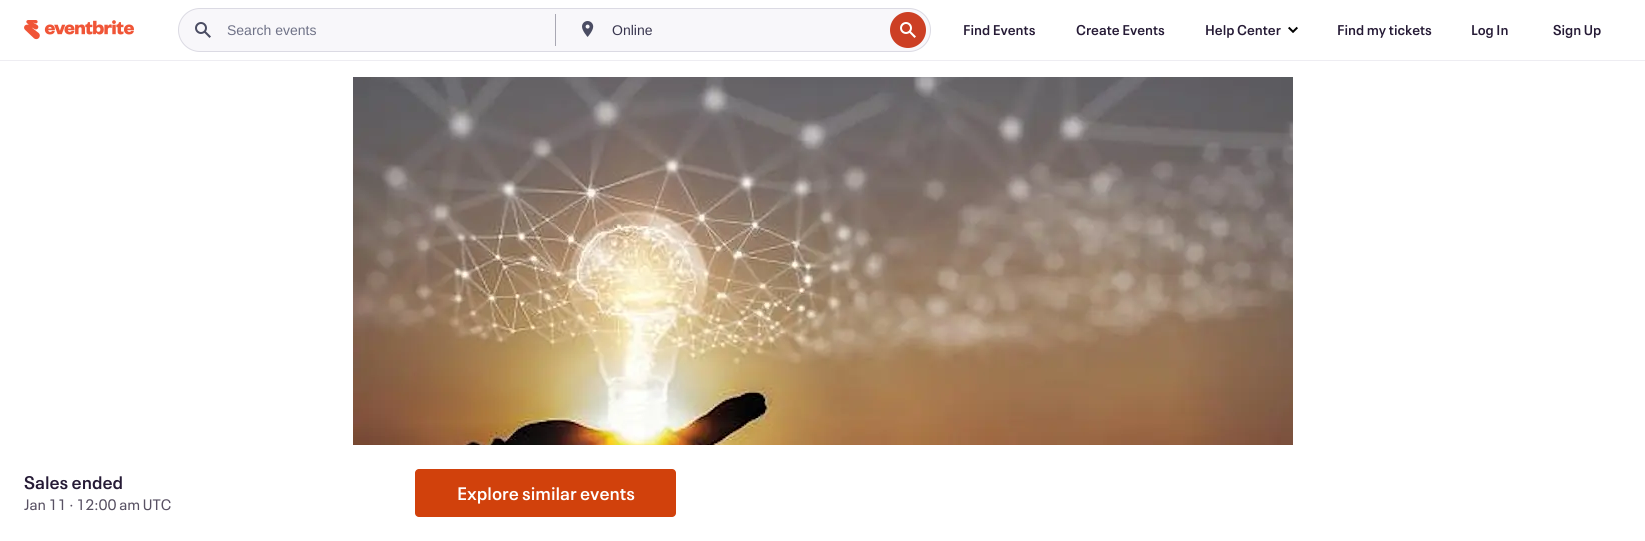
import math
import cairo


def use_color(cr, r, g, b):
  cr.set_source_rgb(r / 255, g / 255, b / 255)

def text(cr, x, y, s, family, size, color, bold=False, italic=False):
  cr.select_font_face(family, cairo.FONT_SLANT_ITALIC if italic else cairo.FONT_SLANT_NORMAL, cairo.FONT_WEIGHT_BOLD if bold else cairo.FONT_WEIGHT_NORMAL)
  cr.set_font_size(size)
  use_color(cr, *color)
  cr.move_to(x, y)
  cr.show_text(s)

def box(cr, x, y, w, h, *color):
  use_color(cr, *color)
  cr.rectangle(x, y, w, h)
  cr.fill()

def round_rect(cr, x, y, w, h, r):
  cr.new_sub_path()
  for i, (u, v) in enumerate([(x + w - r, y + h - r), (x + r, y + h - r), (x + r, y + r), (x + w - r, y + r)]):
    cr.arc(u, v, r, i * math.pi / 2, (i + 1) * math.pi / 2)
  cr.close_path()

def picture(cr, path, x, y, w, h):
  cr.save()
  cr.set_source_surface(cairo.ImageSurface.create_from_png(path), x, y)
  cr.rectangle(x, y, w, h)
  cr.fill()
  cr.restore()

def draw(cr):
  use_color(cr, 255, 255, 255)
  cr.paint()
  box(cr, 0, 60, 1645, 1, 238, 237, 242)
  picture(cr, "img_01.png", 24, 20, 110, 20)
  use_color(cr, 248, 247, 250)
  round_rect(cr, 178.5, 8.5, 752, 43, 21.5)
  cr.fill_preserve()
  use_color(cr, 219, 218, 227)
  cr.set_line_width(1)
  cr.stroke()
  picture(cr, "img_02.png", 195, 22, 16, 16)
  box(cr, 555, 14, 1, 32, 169, 168, 179)
  picture(cr, "img_03.png", 582, 21, 12, 16)
  picture(cr, "img_04.png", 890, 12, 36, 36)
  picture(cr, "img_05.png", 1288, 26, 10, 7)
  picture(cr, "img_06.png", 353, 77, 940, 368)
  use_color(cr, 209, 65, 12)
  round_rect(cr, 415, 469, 261, 48, 4)
  cr.fill()
  text(cr, 227, 35, "Search events", "Liberation Sans", 14, (111, 114, 135))
  text(cr, 612, 35, "Online", "Liberation Sans", 14, (57, 54, 79))
  text(cr, 963, 35, "Find Events", "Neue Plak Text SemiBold", 14, (38, 27, 54))
  text(cr, 1076, 35, "Create Events", "Neue Plak Text SemiBold", 14, (38, 27, 54))
  text(cr, 1205, 35, "Help Center", "Neue Plak Text SemiBold", 14, (38, 27, 54))
  text(cr, 1337, 35, "Find my tickets", "Neue Plak Text SemiBold", 14, (38, 27, 54))
  text(cr, 1471, 35, "Log In", "Neue Plak Text SemiBold", 14, (38, 27, 54))
  text(cr, 1553, 35, "Sign Up", "Neue Plak Text SemiBold", 14, (38, 27, 54))
  text(cr, 24, 489, "Sales ended", "Neue Plak Text SemiBold", 18, (38, 27, 54))
  text(cr, 24, 510, "Jan 11 · 12:00 am UTC", "Neue Plak Text", 15, (88, 81, 99))
  text(cr, 457, 500, "Explore similar events", "Neue Plak Text SemiBold", 18, (255, 255, 255))


surface = cairo.ImageSurface(cairo.FORMAT_RGB24, 1645, 541)
cr = cairo.Context(surface)
options = cairo.FontOptions()
options.set_hint_metrics(cairo.HINT_METRICS_OFF)
options.set_hint_style(cairo.HINT_STYLE_NONE)
cr.set_font_options(options)
cr.set_miter_limit(4)
draw(cr)
surface.write_to_png("out.png")
